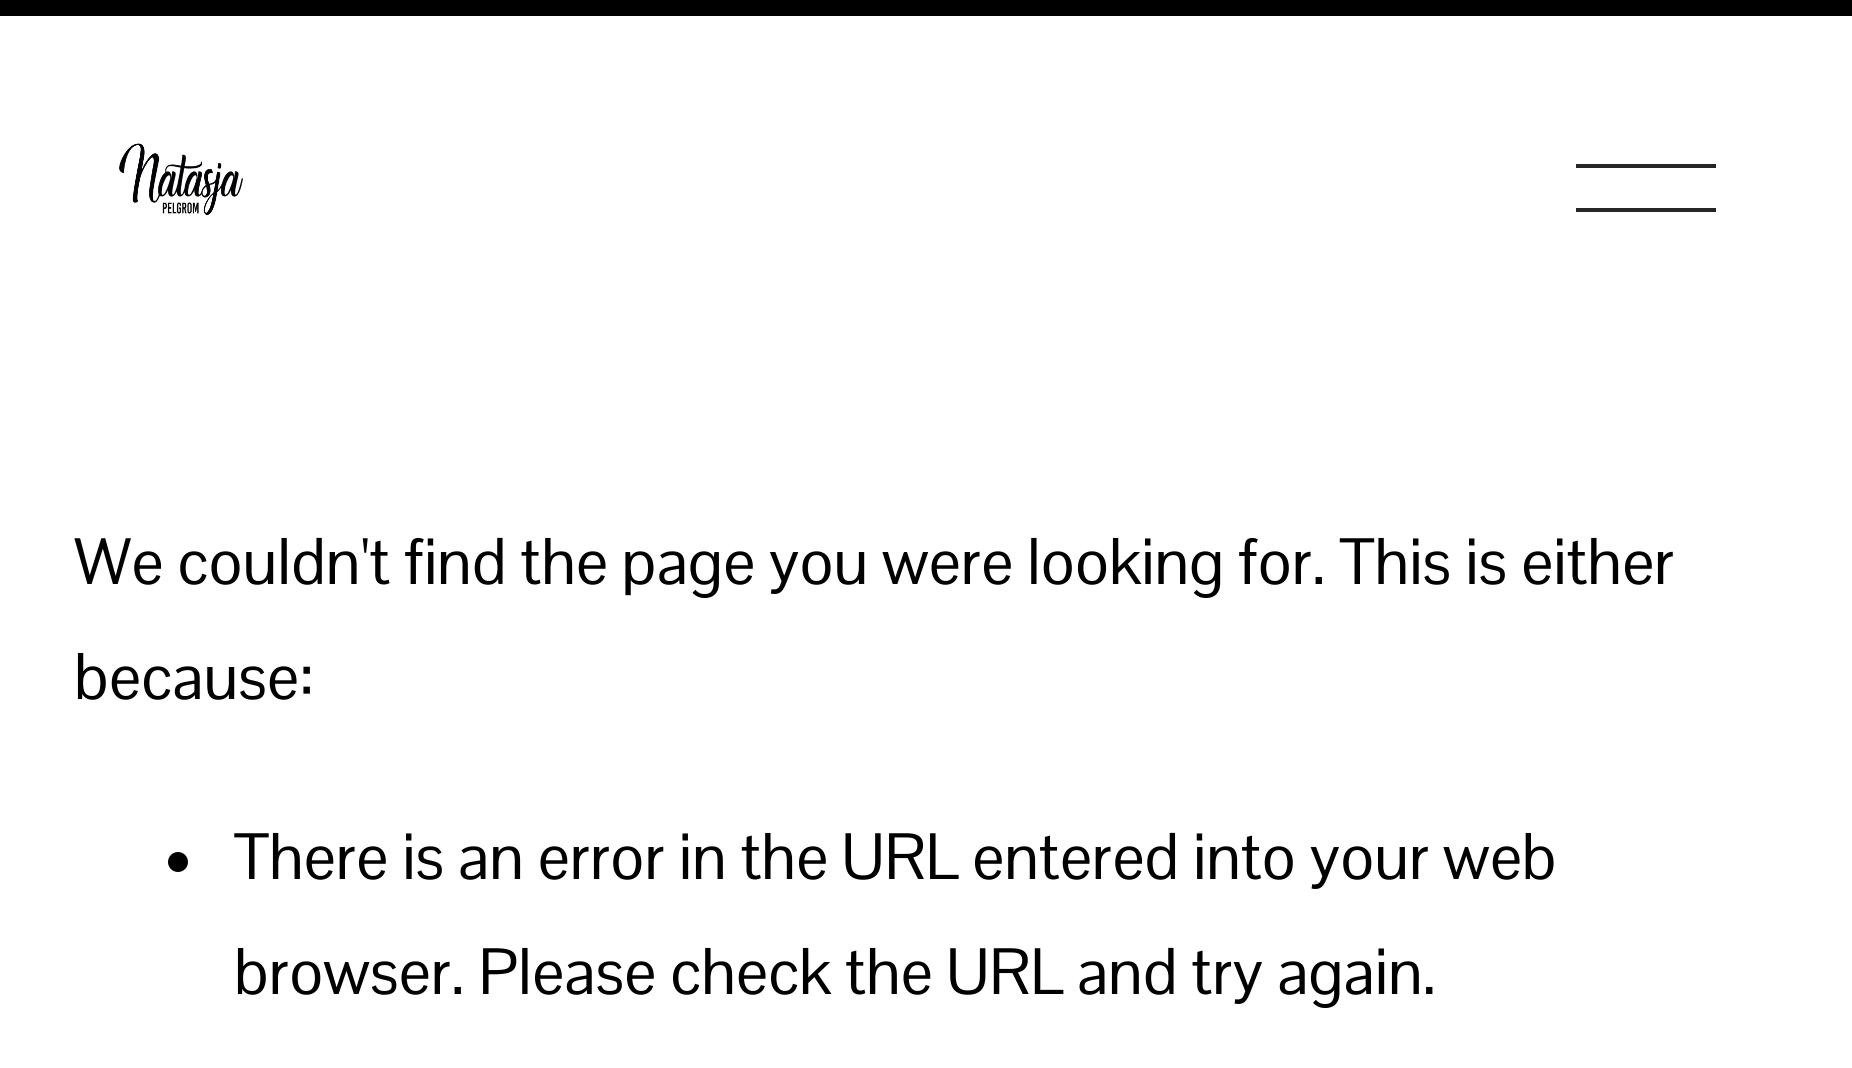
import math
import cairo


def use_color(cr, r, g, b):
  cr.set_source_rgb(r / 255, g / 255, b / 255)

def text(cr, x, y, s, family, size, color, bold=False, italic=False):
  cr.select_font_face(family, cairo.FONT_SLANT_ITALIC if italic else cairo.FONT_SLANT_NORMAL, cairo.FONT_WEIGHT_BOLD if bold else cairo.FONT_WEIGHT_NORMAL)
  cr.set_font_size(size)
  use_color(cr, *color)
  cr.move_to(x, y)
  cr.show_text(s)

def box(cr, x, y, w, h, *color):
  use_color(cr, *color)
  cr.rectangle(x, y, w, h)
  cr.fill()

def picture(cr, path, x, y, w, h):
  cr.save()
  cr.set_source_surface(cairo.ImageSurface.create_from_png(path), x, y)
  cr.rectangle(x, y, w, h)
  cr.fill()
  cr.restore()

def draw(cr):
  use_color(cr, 255, 255, 255)
  cr.paint()
  box(cr, 0, 0, 1852, 16, 0, 0, 0)
  picture(cr, "img_01.png", 119, 143, 124, 72)
  box(cr, 1576, 164, 140, 4, 38, 38, 38)
  box(cr, 1576, 208, 140, 4, 38, 38, 38)
  use_color(cr, 0, 0, 0)
  cr.arc(178, 862, 10, 0, 2 * math.pi)
  cr.fill()
  text(cr, 74, 584, "We couldn't find the page you were looking for. This is either", "Pontano Sans", 64, (0, 0, 0))
  text(cr, 74, 699, "because:", "Pontano Sans", 64, (0, 0, 0))
  text(cr, 234, 879, "There is an error in the URL entered into your web", "Pontano Sans", 64, (0, 0, 0))
  text(cr, 234, 994, "browser. Please check the URL and try again.", "Pontano Sans", 64, (0, 0, 0))


surface = cairo.ImageSurface(cairo.FORMAT_RGB24, 1852, 1068)
cr = cairo.Context(surface)
options = cairo.FontOptions()
options.set_hint_metrics(cairo.HINT_METRICS_OFF)
options.set_hint_style(cairo.HINT_STYLE_NONE)
cr.set_font_options(options)
cr.set_miter_limit(4)
draw(cr)
surface.write_to_png("out.png")
